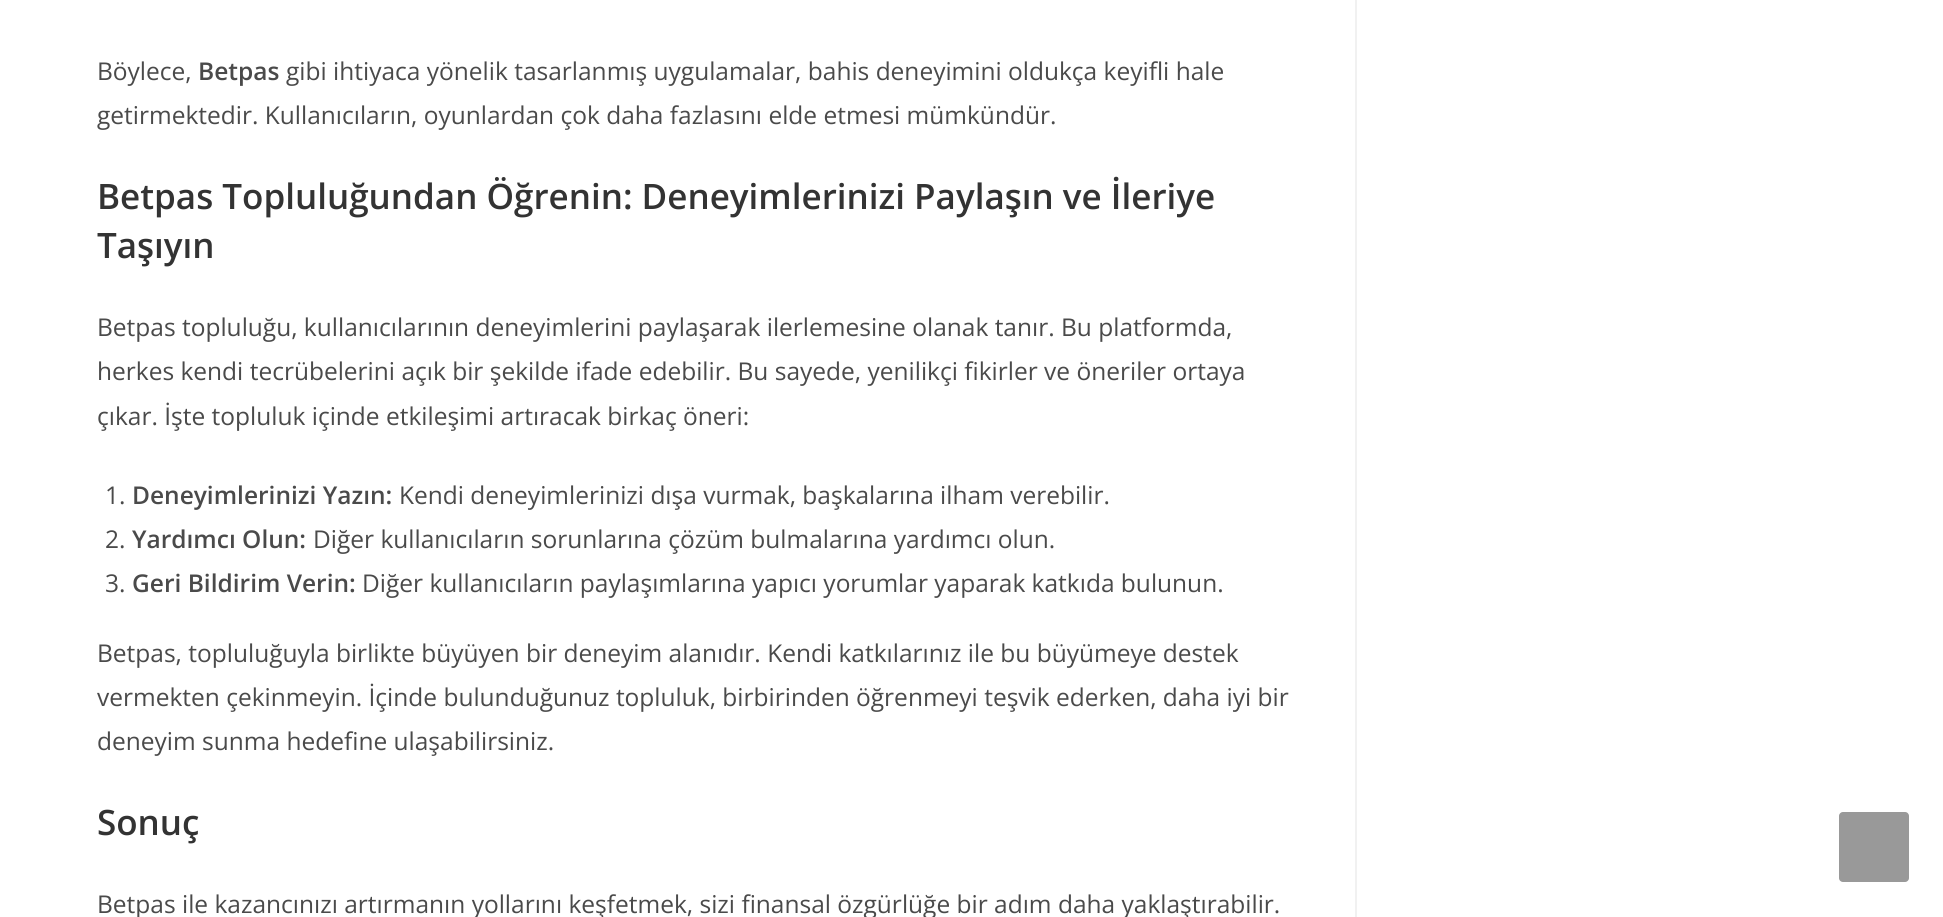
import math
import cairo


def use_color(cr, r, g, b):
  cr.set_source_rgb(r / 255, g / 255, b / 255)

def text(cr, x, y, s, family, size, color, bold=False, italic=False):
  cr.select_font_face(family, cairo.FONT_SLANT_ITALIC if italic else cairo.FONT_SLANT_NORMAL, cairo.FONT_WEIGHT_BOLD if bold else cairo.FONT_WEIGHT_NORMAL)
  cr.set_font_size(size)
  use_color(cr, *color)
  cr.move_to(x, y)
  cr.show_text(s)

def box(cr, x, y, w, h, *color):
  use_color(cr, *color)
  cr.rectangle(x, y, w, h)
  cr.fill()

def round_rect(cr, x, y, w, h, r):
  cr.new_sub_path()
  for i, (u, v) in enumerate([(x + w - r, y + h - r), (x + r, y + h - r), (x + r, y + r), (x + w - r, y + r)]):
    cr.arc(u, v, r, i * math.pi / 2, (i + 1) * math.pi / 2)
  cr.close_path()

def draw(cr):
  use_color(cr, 255, 255, 255)
  cr.paint()
  box(cr, 1355, 0, 2, 917, 241, 241, 241)
  use_color(cr, 153, 153, 153)
  round_rect(cr, 1839, 812, 70, 70, 4)
  cr.fill()
  text(cr, 97, 80, "Böylece,", "Open Sans", 24.5, (74, 74, 74))
  text(cr, 198, 80, "Betpas", "Open Sans SemiBold", 24.5, (74, 74, 74))
  text(cr, 286, 80, "gibi ihtiyaca yönelik tasarlanmış uygulamalar, bahis deneyimini oldukça keyifli hale", "Open Sans", 24.5, (74, 74, 74))
  text(cr, 97, 124, "getirmektedir. Kullanıcıların, oyunlardan çok daha fazlasını elde etmesi mümkündür.", "Open Sans", 24.5, (74, 74, 74))
  text(cr, 97, 209, "Betpas Topluluğundan Öğrenin: Deneyimlerinizi Paylaşın ve İleriye", "Open Sans SemiBold", 35, (51, 51, 51))
  text(cr, 97, 258, "Taşıyın", "Open Sans SemiBold", 35, (51, 51, 51))
  text(cr, 97, 336, "Betpas topluluğu, kullanıcılarının deneyimlerini paylaşarak ilerlemesine olanak tanır. Bu platformda,", "Open Sans", 24.5, (74, 74, 74))
  text(cr, 97, 380, "herkes kendi tecrübelerini açık bir şekilde ifade edebilir. Bu sayede, yenilikçi fikirler ve öneriler ortaya", "Open Sans", 24.5, (74, 74, 74))
  text(cr, 97, 425, "çıkar. İşte topluluk içinde etkileşimi artıracak birkaç öneri:", "Open Sans", 24.5, (74, 74, 74))
  text(cr, 105, 504, "1.", "Open Sans", 24.5, (74, 74, 74))
  text(cr, 132, 504, "Deneyimlerinizi Yazın:", "Open Sans SemiBold", 24.5, (74, 74, 74))
  text(cr, 399, 504, "Kendi deneyimlerinizi dışa vurmak, başkalarına ilham verebilir.", "Open Sans", 24.5, (74, 74, 74))
  text(cr, 105, 548, "2.", "Open Sans", 24.5, (74, 74, 74))
  text(cr, 132, 548, "Yardımcı Olun:", "Open Sans SemiBold", 24.5, (74, 74, 74))
  text(cr, 313, 548, "Diğer kullanıcıların sorunlarına çözüm bulmalarına yardımcı olun.", "Open Sans", 24.5, (74, 74, 74))
  text(cr, 105, 592, "3.", "Open Sans", 24.5, (74, 74, 74))
  text(cr, 132, 592, "Geri Bildirim Verin:", "Open Sans SemiBold", 24.5, (74, 74, 74))
  text(cr, 362, 592, "Diğer kullanıcıların paylaşımlarına yapıcı yorumlar yaparak katkıda bulunun.", "Open Sans", 24.5, (74, 74, 74))
  text(cr, 97, 662, "Betpas, topluluğuyla birlikte büyüyen bir deneyim alanıdır. Kendi katkılarınız ile bu büyümeye destek", "Open Sans", 24.5, (74, 74, 74))
  text(cr, 97, 706, "vermekten çekinmeyin. İçinde bulunduğunuz topluluk, birbirinden öğrenmeyi teşvik ederken, daha iyi bir", "Open Sans", 24.5, (74, 74, 74))
  text(cr, 97, 750, "deneyim sunma hedefine ulaşabilirsiniz.", "Open Sans", 24.5, (74, 74, 74))
  text(cr, 97, 835, "Sonuç", "Open Sans SemiBold", 35, (51, 51, 51))
  text(cr, 97, 913, "Betpas ile kazancınızı artırmanın yollarını keşfetmek, sizi finansal özgürlüğe bir adım daha yaklaştırabilir.", "Open Sans", 24.5, (74, 74, 74))


surface = cairo.ImageSurface(cairo.FORMAT_RGB24, 1943, 917)
cr = cairo.Context(surface)
options = cairo.FontOptions()
options.set_hint_metrics(cairo.HINT_METRICS_OFF)
options.set_hint_style(cairo.HINT_STYLE_NONE)
cr.set_font_options(options)
cr.set_miter_limit(4)
draw(cr)
surface.write_to_png("out.png")
